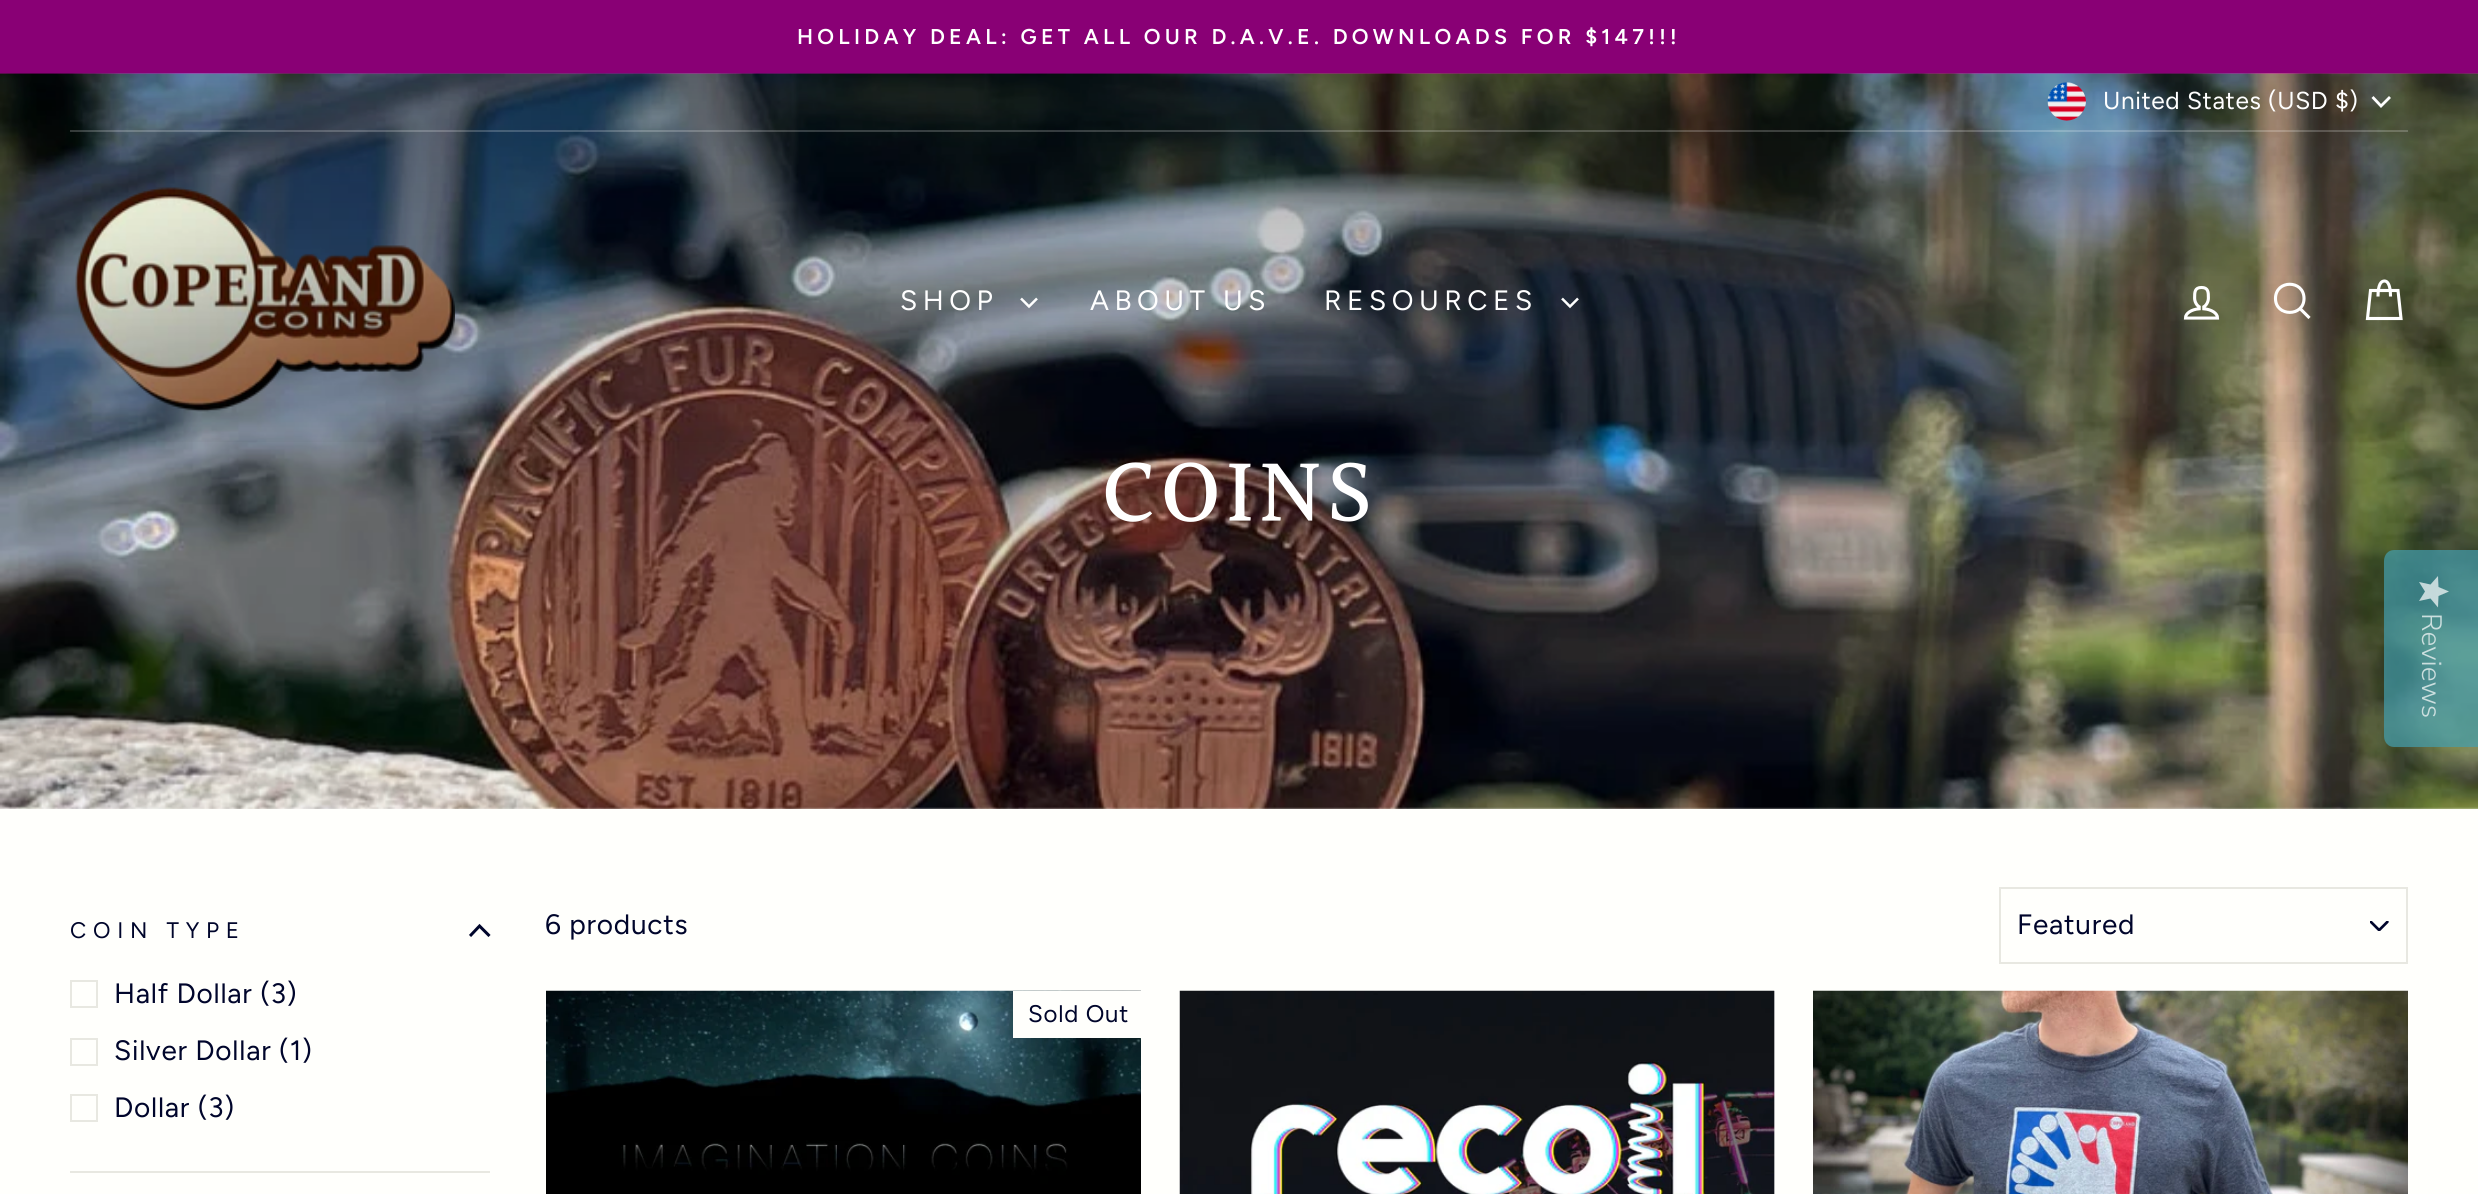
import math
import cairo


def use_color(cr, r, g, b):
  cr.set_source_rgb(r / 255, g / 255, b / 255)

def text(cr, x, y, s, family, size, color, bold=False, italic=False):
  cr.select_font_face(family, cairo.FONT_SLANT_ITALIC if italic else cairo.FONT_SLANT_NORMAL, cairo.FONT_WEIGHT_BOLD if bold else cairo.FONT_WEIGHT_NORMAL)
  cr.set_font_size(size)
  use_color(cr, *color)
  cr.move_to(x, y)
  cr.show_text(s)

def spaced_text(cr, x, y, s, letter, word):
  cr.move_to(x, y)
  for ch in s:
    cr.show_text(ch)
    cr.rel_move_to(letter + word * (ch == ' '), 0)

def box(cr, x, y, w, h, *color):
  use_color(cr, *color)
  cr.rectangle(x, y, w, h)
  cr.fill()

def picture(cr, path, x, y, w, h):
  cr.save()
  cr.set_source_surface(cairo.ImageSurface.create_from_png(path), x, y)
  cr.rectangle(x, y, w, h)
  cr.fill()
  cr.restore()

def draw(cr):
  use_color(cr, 255, 255, 252)
  cr.paint()
  box(cr, 0, 0, 2478, 74, 137, 0, 117)
  picture(cr, "img_04.png", 0, 73, 2478, 736)
  gradient = cairo.LinearGradient(1239, 73, 1239, 471)
  gradient.add_color_stop_rgba(0, 0, 0, 0, 0.3)
  gradient.add_color_stop_rgba(1, 0, 0, 0, 0)
  cr.set_source(gradient)
  cr.rectangle(0, 74, 2478, 368)
  cr.fill()
  cr.set_source_rgba(1, 1, 1, 0.2)
  cr.rectangle(70, 130, 2338, 2)
  cr.fill()
  picture(cr, "img_01.png", 2047, 82, 39, 39)
  cr.new_path()
  cr.move_to(2372.5, 97)
  cr.line_to(2381, 106)
  cr.line_to(2390, 97)
  use_color(cr, 255, 255, 255)
  cr.set_line_width(2.8)
  cr.stroke()
  picture(cr, "img_02.png", 75, 187, 380, 225)
  cr.new_path()
  cr.move_to(1021, 298.5)
  cr.line_to(1029, 306.5)
  cr.line_to(1037, 298.5)
  cr.set_line_width(2.5)
  cr.stroke()
  cr.new_path()
  cr.move_to(1562, 298.5)
  cr.line_to(1570, 306.5)
  cr.line_to(1578, 298.5)
  cr.stroke()
  picture(cr, "img_03.png", 2183, 285, 37, 35)
  cr.new_path()
  cr.move_to(2304, 298.5)
  cr.curve_to(2304, 317, 2275.5, 317, 2275.5, 298.5)
  cr.curve_to(2275.5, 279.5, 2304, 279.5, 2304, 298.5)
  cr.close_path()
  cr.move_to(2309.5, 318)
  cr.line_to(2300, 308.5)
  cr.set_line_width(3.1)
  cr.stroke()
  cr.new_path()
  cr.move_to(2378, 296.5)
  cr.curve_to(2378, 284.5, 2381, 281, 2384.5, 281)
  cr.curve_to(2387.5, 281, 2390.5, 284.5, 2390.5, 296.5)
  cr.move_to(2370.5, 290.5)
  cr.line_to(2398, 290.5)
  cr.line_to(2401, 318.5)
  cr.line_to(2367.5, 318.5)
  cr.close_path()
  cr.stroke()
  cr.new_path()
  cr.move_to(470, 936)
  cr.line_to(479.5, 926)
  cr.line_to(489.5, 936)
  use_color(cr, 0, 5, 43)
  cr.set_line_width(3)
  cr.stroke()
  cr.rectangle(71, 981, 26, 26)
  use_color(cr, 232, 232, 225)
  cr.set_line_width(2)
  cr.stroke()
  cr.rectangle(71, 1039, 26, 26)
  cr.stroke()
  cr.rectangle(71, 1095, 26, 26)
  cr.stroke()
  box(cr, 70, 1171, 420, 2, 232, 232, 225)
  picture(cr, "img_05.png", 2370, 921, 19, 10)
  cr.rectangle(2000, 888, 407, 75)
  cr.stroke()
  picture(cr, "img_06.png", 546, 990, 595, 204)
  box(cr, 1013, 991, 128, 47, 255, 255, 252)
  box(cr, 1774, 991, 1, 203, 229, 229, 229)
  picture(cr, "img_07.png", 1179, 990, 596, 204)
  picture(cr, "img_08.png", 1813, 990, 595, 204)
  cr.set_source_rgba(0.267, 0.62, 0.686, 0.7)
  cr.new_path()
  cr.move_to(2478, 550)
  cr.line_to(2478, 747)
  cr.line_to(2394, 747)
  cr.curve_to(2388, 747, 2384, 742, 2384, 736)
  cr.line_to(2384, 561)
  cr.curve_to(2384, 555, 2388, 550, 2394, 550)
  cr.close_path()
  cr.fill()
  gradient = cairo.LinearGradient(2449, 576, 2449, 607)
  gradient.add_color_stop_rgba(1, 1, 1, 1, 0.7)
  gradient.add_color_stop_rgba(1, 0.918, 0.918, 0.918, 0.7)
  cr.set_source(gradient)
  cr.new_path()
  cr.move_to(2425, 591.5)
  cr.line_to(2419, 601)
  cr.line_to(2430.5, 598.5)
  cr.line_to(2438, 607.5)
  cr.line_to(2438.5, 596)
  cr.line_to(2449, 591.5)
  cr.line_to(2438.5, 587)
  cr.line_to(2438, 576)
  cr.line_to(2430.5, 584.5)
  cr.line_to(2419, 582)
  cr.close_path()
  cr.fill()
  cr.select_font_face("Figtree SemiBold")
  cr.set_font_size(21.4)
  use_color(cr, 255, 255, 255)
  spaced_text(cr, 797, 44, "HOLIDAY DEAL: GET ALL OUR D.A.V.E. DOWNLOADS FOR $147!!!", 4.28, 0)
  cr.select_font_face("Figtree")
  cr.set_font_size(24.5)
  spaced_text(cr, 2103, 109, "United States (USD $)", 0.6, 0)
  cr.set_font_size(28)
  spaced_text(cr, 900, 310, "SHOP", 5.5, 0)
  spaced_text(cr, 1090, 310, "ABOUT US", 5.5, 0)
  spaced_text(cr, 1324, 310, "RESOURCES", 5.5, 0)
  cr.select_font_face("Halant Medium")
  cr.set_font_size(91.5)
  spaced_text(cr, 1101, 525, "COINS", 4.5, 0)
  cr.select_font_face("Figtree")
  cr.set_font_size(22.5)
  use_color(cr, 0, 5, 43)
  spaced_text(cr, 70, 938, "COIN TYPE", 6.75, 0)
  cr.set_font_size(28)
  spaced_text(cr, 114, 1003, "Half Dollar (3)", 0.75, 0)
  spaced_text(cr, 114, 1060, "Silver Dollar (1)", 0.75, 0)
  spaced_text(cr, 114, 1117, "Dollar (3)", 0.75, 0)
  spaced_text(cr, 545, 934, "6 products", 0.75, 0)
  spaced_text(cr, 2017, 934, "Featured", 0.75, 0)
  cr.set_font_size(24)
  spaced_text(cr, 1028, 1022, "Sold Out", 0.75, 0)
  cr.save()
  cr.translate(2422, 613)
  cr.rotate(90 * math.pi / 180)
  text(cr, 0, 0, "Reviews", "Nunito Sans Light", 28, (203, 222, 222))
  cr.restore()


surface = cairo.ImageSurface(cairo.FORMAT_RGB24, 2478, 1194)
cr = cairo.Context(surface)
options = cairo.FontOptions()
options.set_hint_metrics(cairo.HINT_METRICS_OFF)
options.set_hint_style(cairo.HINT_STYLE_NONE)
cr.set_font_options(options)
cr.set_miter_limit(4)
draw(cr)
surface.write_to_png("out.png")
